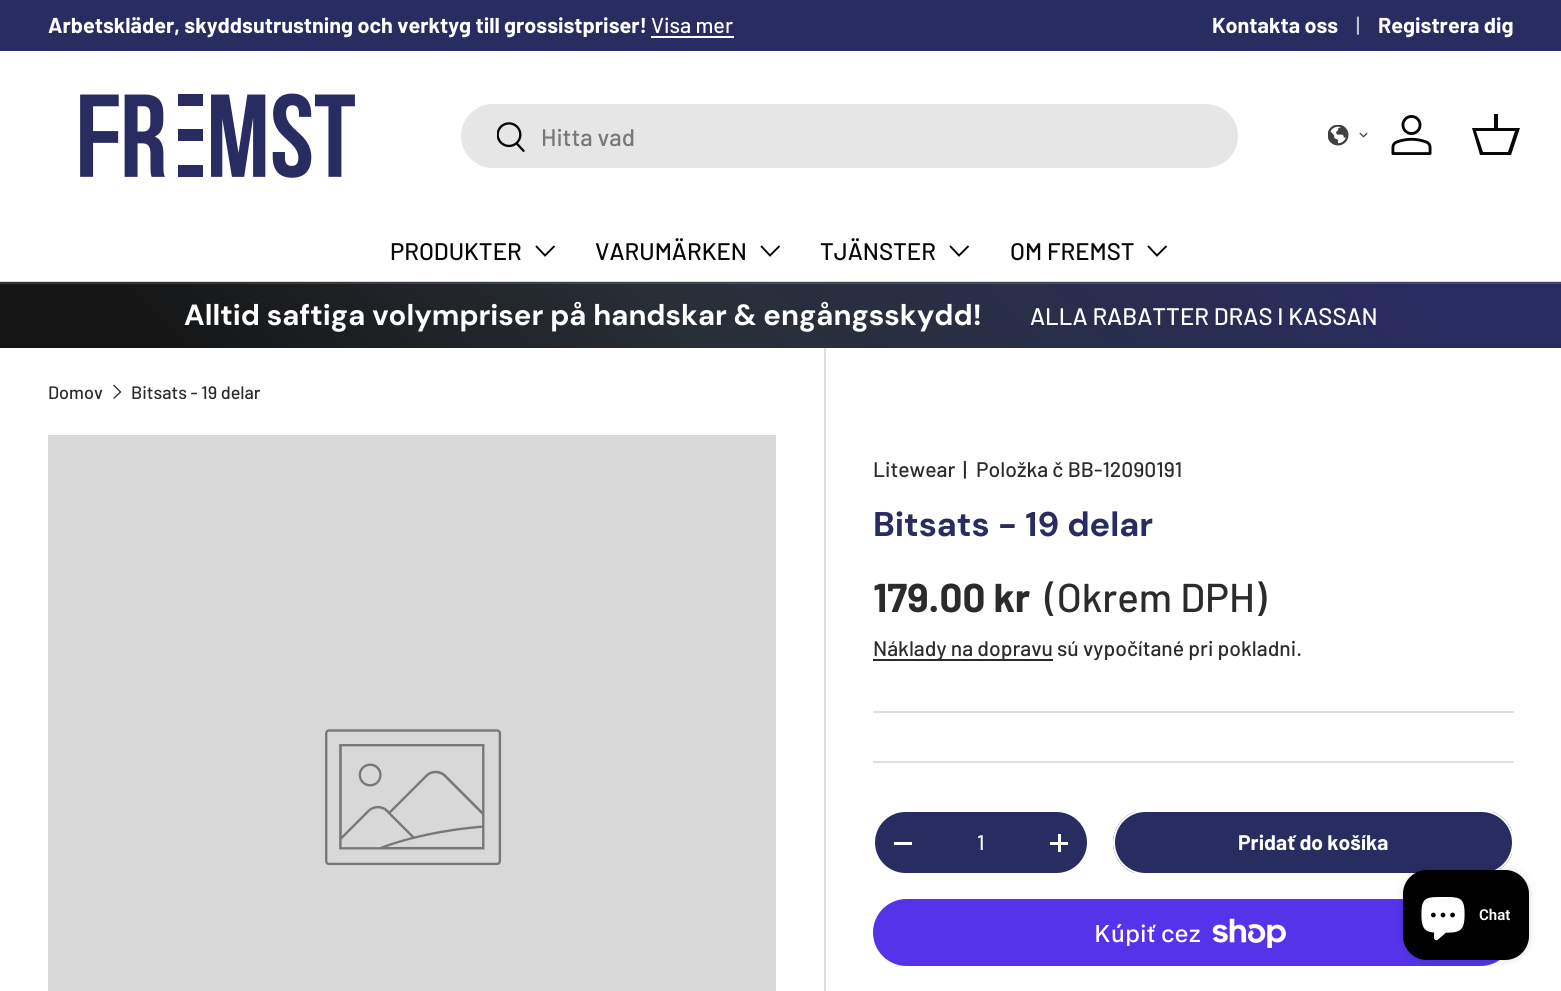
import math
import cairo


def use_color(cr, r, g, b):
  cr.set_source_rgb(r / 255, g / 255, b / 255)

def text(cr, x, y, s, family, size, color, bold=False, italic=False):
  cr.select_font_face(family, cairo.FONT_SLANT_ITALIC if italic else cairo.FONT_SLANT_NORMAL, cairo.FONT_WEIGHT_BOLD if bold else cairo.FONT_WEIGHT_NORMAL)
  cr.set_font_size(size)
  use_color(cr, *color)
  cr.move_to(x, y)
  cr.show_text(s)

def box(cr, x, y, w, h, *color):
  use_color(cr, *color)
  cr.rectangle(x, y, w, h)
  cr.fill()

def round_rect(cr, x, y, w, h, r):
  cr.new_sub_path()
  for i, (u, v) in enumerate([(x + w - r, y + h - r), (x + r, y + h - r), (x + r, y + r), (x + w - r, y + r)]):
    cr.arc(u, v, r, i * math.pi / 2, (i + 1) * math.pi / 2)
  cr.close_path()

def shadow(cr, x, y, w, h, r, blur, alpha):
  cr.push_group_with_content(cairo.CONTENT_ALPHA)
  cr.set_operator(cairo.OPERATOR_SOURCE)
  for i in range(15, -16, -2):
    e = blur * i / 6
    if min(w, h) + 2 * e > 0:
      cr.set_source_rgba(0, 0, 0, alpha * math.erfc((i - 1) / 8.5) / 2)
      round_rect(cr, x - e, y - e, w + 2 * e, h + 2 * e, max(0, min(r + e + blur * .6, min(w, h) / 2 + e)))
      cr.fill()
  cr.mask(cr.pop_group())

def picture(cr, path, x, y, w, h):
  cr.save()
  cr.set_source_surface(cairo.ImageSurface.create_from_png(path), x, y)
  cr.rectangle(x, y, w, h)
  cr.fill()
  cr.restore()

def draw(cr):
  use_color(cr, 255, 255, 255)
  cr.paint()
  box(cr, 0, 281, 1561, 1, 218, 218, 218)
  box(cr, 0, 0, 1561, 51, 41, 44, 97)
  box(cr, 651, 36, 83, 2, 255, 255, 255)
  picture(cr, "img_01.png", 80, 93, 275, 85)
  use_color(cr, 230, 230, 230)
  round_rect(cr, 461, 104, 777, 64, 32)
  cr.fill()
  picture(cr, "img_02.png", 497, 122, 28, 31)
  picture(cr, "img_03.png", 1328, 125, 21, 21)
  picture(cr, "img_04.png", 1359, 132, 9, 6)
  picture(cr, "img_05.png", 1391, 115, 41, 40)
  use_color(cr, 7, 7, 7)
  cr.new_path()
  cr.move_to(1494, 128)
  cr.line_to(1494, 114)
  cr.line_to(1498, 114)
  cr.line_to(1498, 128)
  cr.line_to(1520, 128)
  cr.line_to(1511, 155)
  cr.line_to(1480, 155)
  cr.line_to(1472, 128)
  cr.close_path()
  cr.move_to(1476, 131)
  cr.line_to(1483, 152)
  cr.line_to(1508, 152)
  cr.line_to(1515, 131)
  cr.close_path()
  cr.fill()
  cr.new_path()
  cr.move_to(554.5, 246)
  cr.line_to(545, 255.5)
  cr.line_to(536, 246)
  cr.set_line_width(1.9)
  cr.stroke()
  cr.new_path()
  cr.move_to(779.5, 246)
  cr.line_to(770, 255.5)
  cr.line_to(761, 246)
  cr.stroke()
  cr.new_path()
  cr.move_to(968.5, 246)
  cr.line_to(959, 255.5)
  cr.line_to(950, 246)
  cr.stroke()
  cr.new_path()
  cr.move_to(1166.5, 246)
  cr.line_to(1157, 255.5)
  cr.line_to(1148, 246)
  cr.stroke()
  gradient = cairo.LinearGradient(1187, -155, 374, 658)
  gradient.add_color_stop_rgba(0.08, 0.286, 0.298, 0.475, 1)
  gradient.add_color_stop_rgba(0.56, 0.286, 0.306, 0.329, 1)
  gradient.add_color_stop_rgba(0.92, 0.216, 0.216, 0.216, 1)
  cr.set_source(gradient)
  cr.rectangle(0, 283, 1561, 1)
  cr.fill()
  gradient = cairo.LinearGradient(1187, -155, 374, 658)
  gradient.add_color_stop_rgba(0.08, 0.247, 0.259, 0.408, 1)
  gradient.add_color_stop_rgba(0.56, 0.247, 0.263, 0.282, 1)
  gradient.add_color_stop_rgba(0.92, 0.188, 0.188, 0.188, 1)
  cr.set_source(gradient)
  cr.rectangle(0, 282, 1561, 1)
  cr.fill()
  gradient = cairo.LinearGradient(1187, -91, 374, 722)
  gradient.add_color_stop_rgba(0.08, 0.161, 0.173, 0.38, 1)
  gradient.add_color_stop_rgba(0.56, 0.161, 0.184, 0.212, 1)
  gradient.add_color_stop_rgba(0.92, 0.078, 0.078, 0.078, 1)
  cr.set_source(gradient)
  cr.rectangle(0, 284, 1561, 64)
  cr.fill()
  cr.new_path()
  cr.move_to(113.5, 385)
  cr.line_to(120.5, 392)
  cr.line_to(113.5, 398.5)
  use_color(cr, 42, 43, 42)
  cr.set_line_width(1.3)
  cr.stroke()
  box(cr, 48, 435, 728, 556, 216, 216, 216)
  picture(cr, "img_06.png", 325, 729, 177, 137)
  box(cr, 824, 348, 2, 643, 223, 223, 223)
  box(cr, 873, 659, 180, 2, 42, 43, 42)
  box(cr, 873, 711, 641, 2, 223, 223, 223)
  box(cr, 873, 761, 641, 2, 223, 223, 223)
  use_color(cr, 41, 44, 97)
  round_rect(cr, 874, 811, 214, 63, 31.5)
  cr.fill_preserve()
  use_color(cr, 255, 255, 255)
  cr.set_line_width(2)
  cr.stroke()
  box(cr, 894, 842, 18, 3, 255, 255, 255)
  box(cr, 1050, 842, 18, 3, 255, 255, 255)
  box(cr, 1058, 834, 3, 18, 255, 255, 255)
  cr.save()
  round_rect(cr, 1113, 810, 401, 65, 32.5)
  cr.clip()
  gradient = cairo.LinearGradient(347, 700, 1484, 984)
  gradient.add_color_stop_rgba(0.6, 1, 1, 1, 0.07)
  gradient.add_color_stop_rgba(0.6, 0.161, 0.173, 0.38, 1)
  gradient.add_color_stop_rgba(1, 0.161, 0.173, 0.38, 1)
  cr.set_source(gradient)
  cr.rectangle(1113, 812, 399, 61)
  cr.fill()
  cr.restore()
  round_rect(cr, 1114, 811, 399, 63, 31.5)
  cr.stroke()
  use_color(cr, 84, 51, 235)
  round_rect(cr, 873, 899, 641, 67, 33.5)
  cr.fill()
  picture(cr, "img_07.png", 1212, 918, 74, 30)
  use_color(cr, 0, 0, 0)
  shadow(cr, 1403, 870, 126, 90, 24, 4, 0.15)
  use_color(cr, 0, 0, 0)
  round_rect(cr, 1403, 870, 126, 90, 24)
  cr.fill()
  picture(cr, "img_08.png", 1421, 897, 44, 44)
  text(cr, 48, 33, "Arbetskläder, skyddsutrustning och verktyg till grossistpriser!", "Barlow", 21.6, (255, 255, 255), bold=True)
  text(cr, 651, 33, "Visa mer", "Barlow Medium", 21.6, (255, 255, 255))
  text(cr, 1212, 33, "Kontakta oss", "Barlow", 21.6, (255, 255, 255), bold=True)
  text(cr, 1356, 33, "|", "Barlow Medium", 21.6, (191, 192, 208))
  text(cr, 1378, 33, "Registrera dig", "Barlow", 21.6, (255, 255, 255), bold=True)
  text(cr, 541, 146, "Hitta vad", "Barlow Medium", 24, (119, 119, 119))
  text(cr, 390, 260, "PRODUKTER", "Barlow Medium", 24, (7, 7, 7))
  text(cr, 595, 260, "VARUMÄRKEN", "Barlow Medium", 24, (7, 7, 7))
  text(cr, 820, 260, "TJÄNSTER", "Barlow Medium", 24, (7, 7, 7))
  text(cr, 1010, 260, "OM FREMST", "Barlow Medium", 24, (7, 7, 7))
  text(cr, 184, 325, "Alltid saftiga volympriser på handskar & engångsskydd!", "DM Sans", 29.25, (255, 255, 255), bold=True)
  text(cr, 1030, 325, "ALLA RABATTER DRAS I KASSAN", "Barlow Medium", 24, (255, 255, 255))
  text(cr, 48, 399, "Domov", "Barlow Medium", 18, (42, 43, 42))
  text(cr, 131, 399, "Bitsats - 19 delar", "Barlow Medium", 18, (42, 43, 42))
  text(cr, 873, 477, "Litewear", "Barlow Medium", 21.1, (42, 43, 42))
  text(cr, 963, 477, "|", "Barlow Medium", 21.1, (42, 43, 42))
  text(cr, 976, 477, "Položka č BB-12090191", "Barlow Medium", 21.1, (42, 43, 42))
  text(cr, 873, 536, "Bitsats - 19 delar", "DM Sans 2", 34.25, (41, 44, 97), bold=True)
  text(cr, 873, 612, "179.00 kr", "Barlow", 40.25, (42, 43, 42), bold=True)
  text(cr, 1045, 612, "(Okrem DPH)", "Barlow Medium", 40.25, (42, 43, 42))
  text(cr, 873, 656, "Náklady na dopravu sú vypočítané pri pokladni.", "Barlow Medium", 21.1, (42, 43, 42))
  text(cr, 977, 850, "1", "Barlow Medium", 21.1, (255, 255, 255))
  text(cr, 1238, 850, "Pridať do košíka", "Barlow", 21.1, (255, 255, 255), bold=True)
  text(cr, 1094, 942, "Kúpiť cez", "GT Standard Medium", 24, (255, 255, 255))
  text(cr, 1479, 920, "Chat", "Roboto SemiBold", 15, (255, 255, 255))


surface = cairo.ImageSurface(cairo.FORMAT_RGB24, 1561, 991)
cr = cairo.Context(surface)
options = cairo.FontOptions()
options.set_hint_metrics(cairo.HINT_METRICS_OFF)
options.set_hint_style(cairo.HINT_STYLE_NONE)
cr.set_font_options(options)
cr.set_miter_limit(4)
draw(cr)
surface.write_to_png("out.png")
